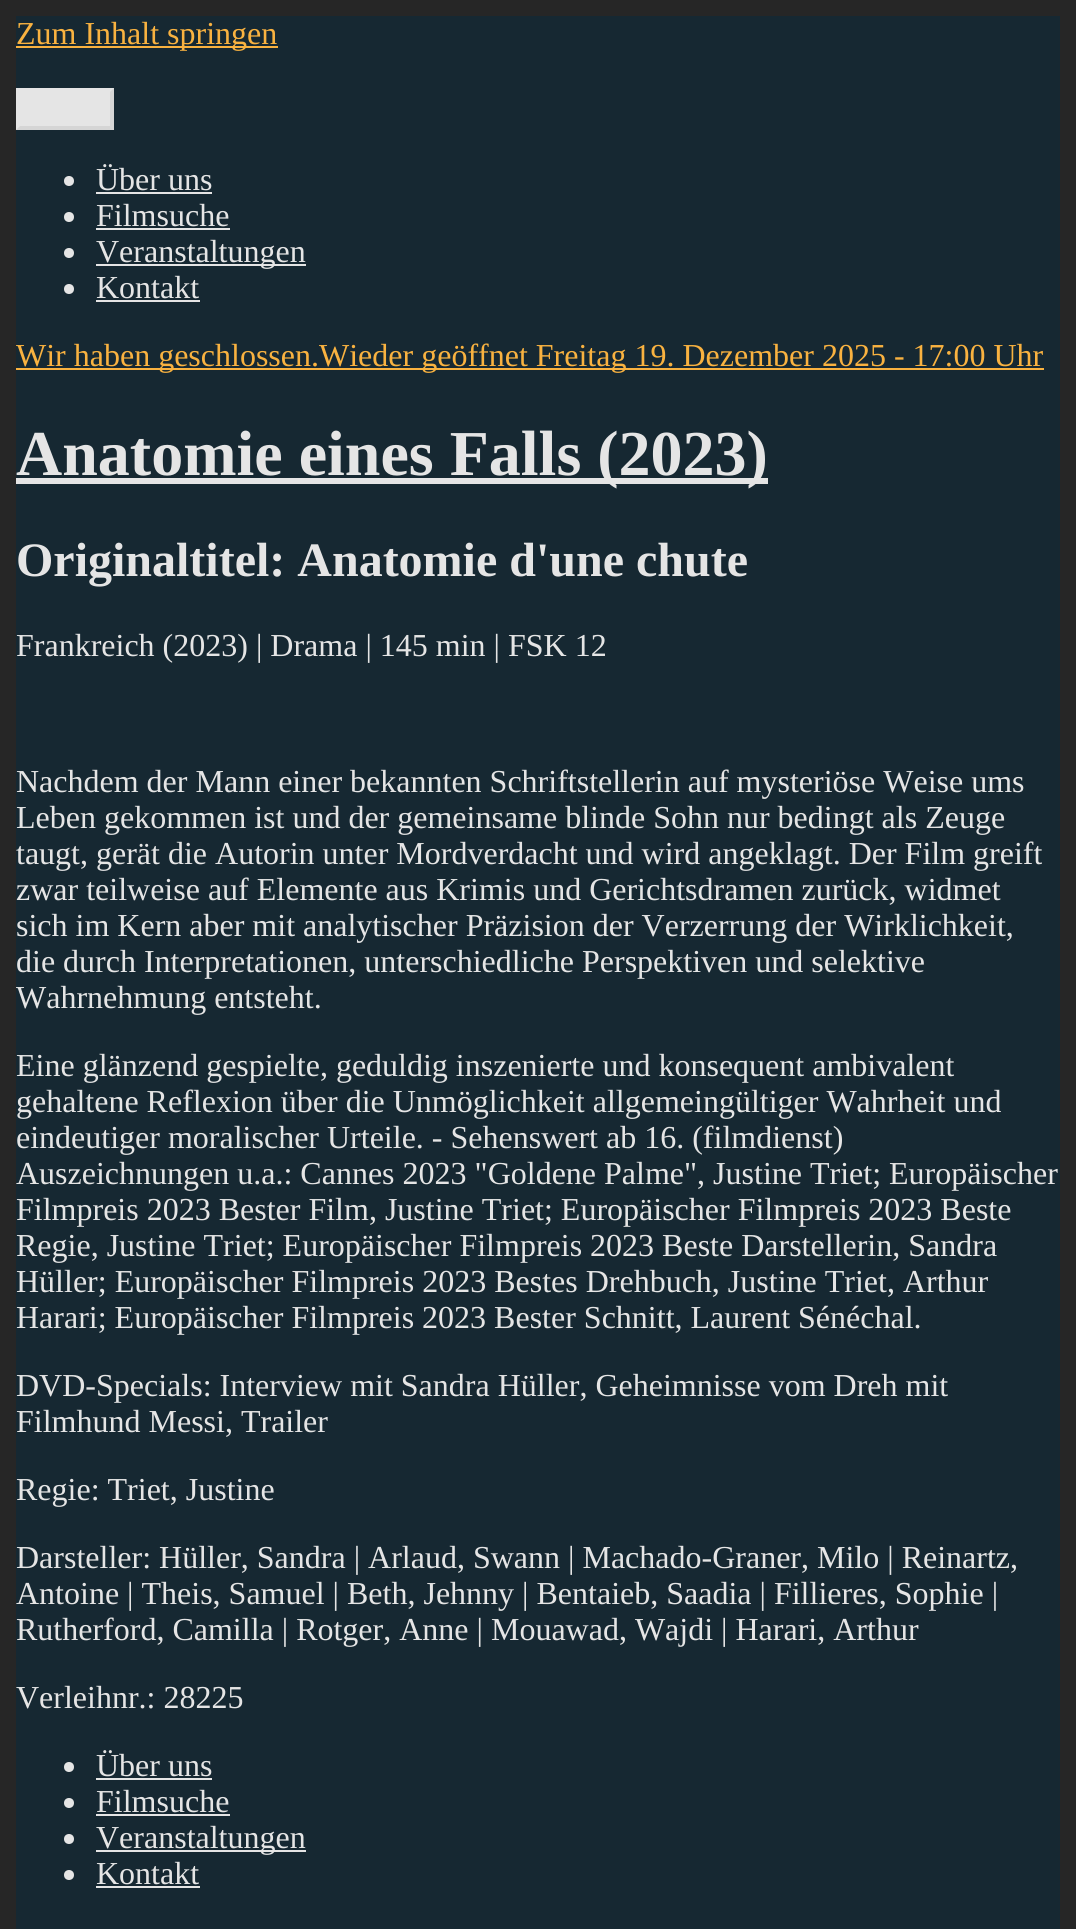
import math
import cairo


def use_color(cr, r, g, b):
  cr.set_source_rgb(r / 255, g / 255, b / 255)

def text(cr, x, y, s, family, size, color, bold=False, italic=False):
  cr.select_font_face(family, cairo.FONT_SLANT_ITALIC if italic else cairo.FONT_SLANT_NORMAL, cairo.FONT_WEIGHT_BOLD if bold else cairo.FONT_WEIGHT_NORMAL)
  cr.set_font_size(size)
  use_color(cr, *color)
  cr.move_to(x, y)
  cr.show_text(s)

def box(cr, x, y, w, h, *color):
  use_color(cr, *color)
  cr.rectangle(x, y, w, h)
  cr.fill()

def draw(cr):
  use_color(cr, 38, 38, 38)
  cr.paint()
  box(cr, 16, 16, 1044, 1913, 22, 40, 50)
  box(cr, 16, 46, 262, 2, 249, 178, 64)
  box(cr, 16, 88, 98, 42, 229, 229, 229)
  use_color(cr, 214, 214, 214)
  cr.new_path()
  cr.move_to(114, 88)
  cr.line_to(114, 130)
  cr.line_to(110, 126)
  cr.line_to(110, 92)
  cr.close_path()
  cr.fill()
  cr.set_source_rgba(0.6, 0.6, 0.6, 0.2)
  cr.new_path()
  cr.move_to(114, 130)
  cr.line_to(16, 130)
  cr.line_to(20, 126)
  cr.line_to(110, 126)
  cr.close_path()
  cr.fill()
  use_color(cr, 229, 229, 229)
  cr.arc(69, 181, 5, 0, 2 * math.pi)
  cr.fill()
  box(cr, 96, 192, 116, 2, 229, 229, 229)
  cr.arc(69, 217, 5, 0, 2 * math.pi)
  cr.fill()
  box(cr, 96, 228, 134, 2, 229, 229, 229)
  cr.arc(69, 253, 5, 0, 2 * math.pi)
  cr.fill()
  box(cr, 96, 264, 210, 2, 229, 229, 229)
  cr.arc(69, 289, 5, 0, 2 * math.pi)
  cr.fill()
  box(cr, 96, 300, 104, 2, 229, 229, 229)
  box(cr, 16, 368, 1028, 2, 249, 178, 64)
  box(cr, 16, 478, 752, 6, 229, 229, 229)
  cr.arc(69, 1767, 5, 0, 2 * math.pi)
  cr.fill()
  box(cr, 96, 1778, 116, 2, 229, 229, 229)
  cr.arc(69, 1803, 5, 0, 2 * math.pi)
  cr.fill()
  box(cr, 96, 1814, 134, 2, 229, 229, 229)
  cr.arc(69, 1839, 5, 0, 2 * math.pi)
  cr.fill()
  box(cr, 96, 1850, 210, 2, 229, 229, 229)
  cr.arc(69, 1875, 5, 0, 2 * math.pi)
  cr.fill()
  box(cr, 96, 1886, 104, 2, 229, 229, 229)
  text(cr, 16, 44, "Zum Inhalt springen", "Liberation Serif", 32, (249, 178, 64))
  text(cr, 96, 190, "Über uns", "Liberation Serif", 32, (229, 229, 229))
  text(cr, 96, 226, "Filmsuche", "Liberation Serif", 32, (229, 229, 229))
  text(cr, 96, 262, "Veranstaltungen", "Liberation Serif", 32, (229, 229, 229))
  text(cr, 96, 298, "Kontakt", "Liberation Serif", 32, (229, 229, 229))
  text(cr, 16, 366, "Wir haben geschlossen.Wieder geöffnet Freitag 19. Dezember 2025 - 17:00 Uhr", "Liberation Serif", 32, (249, 178, 64))
  text(cr, 16, 475, "Anatomie eines Falls (2023)", "Liberation Serif", 64, (229, 229, 229), bold=True)
  text(cr, 16, 576, "Originaltitel: Anatomie d'une chute", "Liberation Serif", 48, (229, 229, 229), bold=True)
  text(cr, 16, 656, "Frankreich (2023) | Drama | 145 min | FSK 12", "Liberation Serif", 32, (229, 229, 229))
  text(cr, 16, 792, "Nachdem der Mann einer bekannten Schriftstellerin auf mysteriöse Weise ums", "Liberation Serif", 32, (229, 229, 229))
  text(cr, 16, 828, "Leben gekommen ist und der gemeinsame blinde Sohn nur bedingt als Zeuge", "Liberation Serif", 32, (229, 229, 229))
  text(cr, 16, 864, "taugt, gerät die Autorin unter Mordverdacht und wird angeklagt. Der Film greift", "Liberation Serif", 32, (229, 229, 229))
  text(cr, 16, 900, "zwar teilweise auf Elemente aus Krimis und Gerichtsdramen zurück, widmet", "Liberation Serif", 32, (229, 229, 229))
  text(cr, 16, 936, "sich im Kern aber mit analytischer Präzision der Verzerrung der Wirklichkeit,", "Liberation Serif", 32, (229, 229, 229))
  text(cr, 16, 972, "die durch Interpretationen, unterschiedliche Perspektiven und selektive", "Liberation Serif", 32, (229, 229, 229))
  text(cr, 16, 1008, "Wahrnehmung entsteht.", "Liberation Serif", 32, (229, 229, 229))
  text(cr, 16, 1076, "Eine glänzend gespielte, geduldig inszenierte und konsequent ambivalent", "Liberation Serif", 32, (229, 229, 229))
  text(cr, 16, 1112, "gehaltene Reflexion über die Unmöglichkeit allgemeingültiger Wahrheit und", "Liberation Serif", 32, (229, 229, 229))
  text(cr, 16, 1148, "eindeutiger moralischer Urteile. - Sehenswert ab 16. (filmdienst)", "Liberation Serif", 32, (229, 229, 229))
  text(cr, 16, 1184, "Auszeichnungen u.a.: Cannes 2023 \"Goldene Palme\", Justine Triet; Europäischer", "Liberation Serif", 32, (229, 229, 229))
  text(cr, 16, 1220, "Filmpreis 2023 Bester Film, Justine Triet; Europäischer Filmpreis 2023 Beste", "Liberation Serif", 32, (229, 229, 229))
  text(cr, 16, 1256, "Regie, Justine Triet; Europäischer Filmpreis 2023 Beste Darstellerin, Sandra", "Liberation Serif", 32, (229, 229, 229))
  text(cr, 16, 1292, "Hüller; Europäischer Filmpreis 2023 Bestes Drehbuch, Justine Triet, Arthur", "Liberation Serif", 32, (229, 229, 229))
  text(cr, 16, 1328, "Harari; Europäischer Filmpreis 2023 Bester Schnitt, Laurent Sénéchal.", "Liberation Serif", 32, (229, 229, 229))
  text(cr, 16, 1396, "DVD-Specials: Interview mit Sandra Hüller, Geheimnisse vom Dreh mit", "Liberation Serif", 32, (229, 229, 229))
  text(cr, 16, 1432, "Filmhund Messi, Trailer", "Liberation Serif", 32, (229, 229, 229))
  text(cr, 16, 1500, "Regie: Triet, Justine", "Liberation Serif", 32, (229, 229, 229))
  text(cr, 16, 1568, "Darsteller: Hüller, Sandra | Arlaud, Swann | Machado-Graner, Milo | Reinartz,", "Liberation Serif", 32, (229, 229, 229))
  text(cr, 16, 1604, "Antoine | Theis, Samuel | Beth, Jehnny | Bentaieb, Saadia | Fillieres, Sophie |", "Liberation Serif", 32, (229, 229, 229))
  text(cr, 16, 1640, "Rutherford, Camilla | Rotger, Anne | Mouawad, Wajdi | Harari, Arthur", "Liberation Serif", 32, (229, 229, 229))
  text(cr, 16, 1708, "Verleihnr.: 28225", "Liberation Serif", 32, (229, 229, 229))
  text(cr, 96, 1776, "Über uns", "Liberation Serif", 32, (229, 229, 229))
  text(cr, 96, 1812, "Filmsuche", "Liberation Serif", 32, (229, 229, 229))
  text(cr, 96, 1848, "Veranstaltungen", "Liberation Serif", 32, (229, 229, 229))
  text(cr, 96, 1884, "Kontakt", "Liberation Serif", 32, (229, 229, 229))


surface = cairo.ImageSurface(cairo.FORMAT_RGB24, 1076, 1929)
cr = cairo.Context(surface)
options = cairo.FontOptions()
options.set_hint_metrics(cairo.HINT_METRICS_OFF)
options.set_hint_style(cairo.HINT_STYLE_NONE)
cr.set_font_options(options)
cr.set_miter_limit(4)
draw(cr)
surface.write_to_png("out.png")
